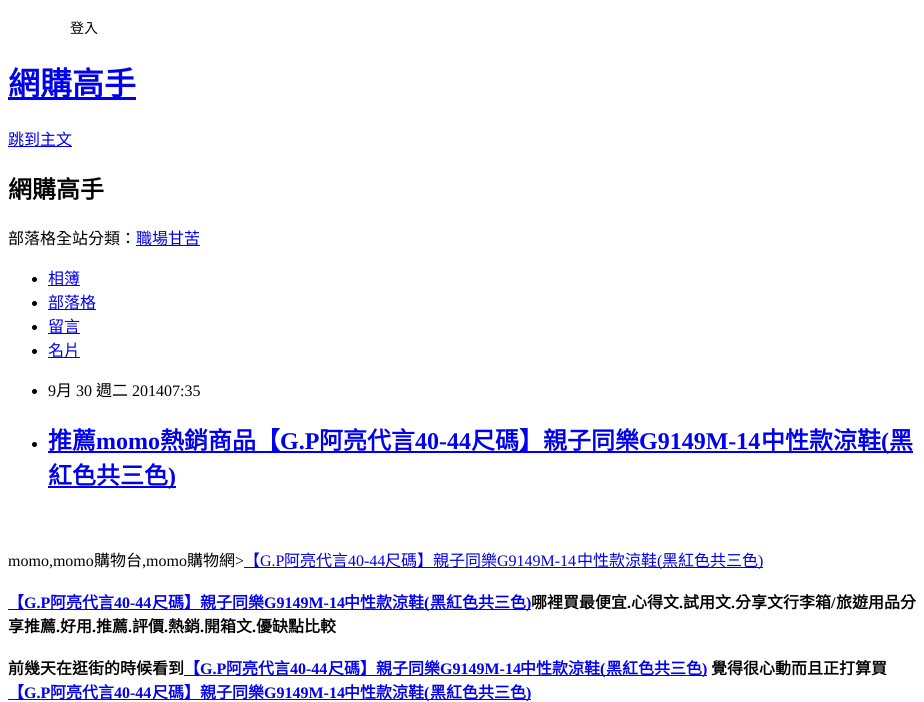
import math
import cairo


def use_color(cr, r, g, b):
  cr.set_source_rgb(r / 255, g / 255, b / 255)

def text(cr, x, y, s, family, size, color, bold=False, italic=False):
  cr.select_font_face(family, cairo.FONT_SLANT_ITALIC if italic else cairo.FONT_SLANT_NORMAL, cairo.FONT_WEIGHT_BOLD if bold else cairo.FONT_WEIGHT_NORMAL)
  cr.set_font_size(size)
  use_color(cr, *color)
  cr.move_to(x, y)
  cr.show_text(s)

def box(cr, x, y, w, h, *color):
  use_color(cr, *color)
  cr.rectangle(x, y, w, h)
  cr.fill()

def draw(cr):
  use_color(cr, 255, 255, 255)
  cr.paint()
  box(cr, 8, 97, 128, 3, 0, 0, 238)
  box(cr, 8, 146, 64, 1, 0, 0, 238)
  box(cr, 136, 245, 64, 1, 0, 0, 238)
  use_color(cr, 0, 0, 0)
  cr.arc(34.5, 279.5, 2.5, 0, 2 * math.pi)
  cr.fill()
  box(cr, 48, 285, 32, 1, 0, 0, 238)
  use_color(cr, 0, 0, 0)
  cr.arc(34.5, 303.5, 2.5, 0, 2 * math.pi)
  cr.fill()
  box(cr, 48, 309, 48, 1, 0, 0, 238)
  use_color(cr, 0, 0, 0)
  cr.arc(34.5, 327.5, 2.5, 0, 2 * math.pi)
  cr.fill()
  box(cr, 48, 333, 32, 1, 0, 0, 238)
  use_color(cr, 0, 0, 0)
  cr.arc(34.5, 351.5, 2.5, 0, 2 * math.pi)
  cr.fill()
  box(cr, 48, 357, 32, 1, 0, 0, 238)
  use_color(cr, 0, 0, 0)
  cr.arc(34.5, 391.5, 2.5, 0, 2 * math.pi)
  cr.fill()
  cr.arc(34.5, 444.5, 2.5, 0, 2 * math.pi)
  cr.fill()
  box(cr, 48, 451, 865, 2, 0, 0, 238)
  box(cr, 48, 486, 128, 2, 0, 0, 238)
  box(cr, 244, 567, 519, 1, 0, 0, 238)
  box(cr, 8, 609, 523, 1, 0, 0, 238)
  box(cr, 184, 675, 523, 1, 0, 0, 238)
  box(cr, 8, 699, 523, 1, 0, 0, 238)
  text(cr, 70, 33, "登入", "Noto Sans CJK TC", 14, (0, 0, 0))
  text(cr, 8, 95, "網購高手", "Noto Sans CJK TC", 32, (0, 0, 238), bold=True)
  text(cr, 8, 145, "跳到主文", "Noto Sans CJK TC", 16, (0, 0, 238))
  text(cr, 8, 198, "網購高手", "Noto Sans CJK TC", 24, (0, 0, 0), bold=True)
  text(cr, 8, 244, "部落格全站分類：", "Noto Sans CJK TC", 16, (0, 0, 0))
  text(cr, 136, 244, "職場甘苦", "Noto Sans CJK TC", 16, (0, 0, 238))
  text(cr, 48, 284, "相簿", "Noto Sans CJK TC", 16, (0, 0, 238))
  text(cr, 48, 308, "部落格", "Noto Sans CJK TC", 16, (0, 0, 238))
  text(cr, 48, 332, "留言", "Noto Sans CJK TC", 16, (0, 0, 238))
  text(cr, 48, 356, "名片", "Noto Sans CJK TC", 16, (0, 0, 238))
  text(cr, 48, 396, "9", "Liberation Serif", 16, (0, 0, 0))
  text(cr, 56, 396, "月", "Noto Sans CJK TC", 16, (0, 0, 0))
  text(cr, 76, 396, "30", "Liberation Serif", 16, (0, 0, 0))
  text(cr, 96, 396, "週二", "Noto Sans CJK TC", 16, (0, 0, 0))
  text(cr, 132, 396, "201407:35", "Liberation Serif", 16, (0, 0, 0))
  text(cr, 48, 449, "推薦", "Noto Sans CJK TC", 24, (0, 0, 238), bold=True)
  text(cr, 96, 449, "momo", "Liberation Serif", 24, (0, 0, 238), bold=True)
  text(cr, 160, 449, "熱銷商品【", "Noto Sans CJK TC", 24, (0, 0, 238), bold=True)
  text(cr, 280, 449, "G.P", "Liberation Serif", 24, (0, 0, 238), bold=True)
  text(cr, 319, 449, "阿亮代言", "Noto Sans CJK TC", 24, (0, 0, 238), bold=True)
  text(cr, 415, 449, "40-44", "Liberation Serif", 24, (0, 0, 238), bold=True)
  text(cr, 471, 449, "尺碼】親子同樂", "Noto Sans CJK TC", 24, (0, 0, 238), bold=True)
  text(cr, 639, 449, "G9149M-14", "Liberation Serif", 24, (0, 0, 238), bold=True)
  text(cr, 761, 449, "中性款涼鞋", "Noto Sans CJK TC", 24, (0, 0, 238), bold=True)
  text(cr, 881, 449, "(", "Liberation Serif", 24, (0, 0, 238), bold=True)
  text(cr, 889, 449, "黑", "Noto Sans CJK TC", 24, (0, 0, 238), bold=True)
  text(cr, 48, 484, "紅色共三色", "Noto Sans CJK TC", 24, (0, 0, 238), bold=True)
  text(cr, 168, 484, ")", "Liberation Serif", 24, (0, 0, 238), bold=True)
  text(cr, 8, 566, "momo,momo", "Liberation Serif", 16, (0, 0, 0))
  text(cr, 94, 566, "購物台", "Noto Sans CJK TC", 16, (0, 0, 0))
  text(cr, 142, 566, ",momo", "Liberation Serif", 16, (0, 0, 0))
  text(cr, 187, 566, "購物網", "Noto Sans CJK TC", 16, (0, 0, 0))
  text(cr, 235, 566, ">", "Liberation Serif", 16, (0, 0, 0))
  text(cr, 244, 566, "【", "Noto Sans CJK TC", 16, (0, 0, 238))
  text(cr, 260, 566, "G.P", "Liberation Serif", 16, (0, 0, 238))
  text(cr, 284, 566, "阿亮代言", "Noto Sans CJK TC", 16, (0, 0, 238))
  text(cr, 348, 566, "40-44", "Liberation Serif", 16, (0, 0, 238))
  text(cr, 385, 566, "尺碼】親子同樂", "Noto Sans CJK TC", 16, (0, 0, 238))
  text(cr, 497, 566, "G9149M-14", "Liberation Serif", 16, (0, 0, 238))
  text(cr, 577, 566, "中性款涼鞋", "Noto Sans CJK TC", 16, (0, 0, 238))
  text(cr, 657, 566, "(", "Liberation Serif", 16, (0, 0, 238))
  text(cr, 662, 566, "黑紅色共三色", "Noto Sans CJK TC", 16, (0, 0, 238))
  text(cr, 758, 566, ")", "Liberation Serif", 16, (0, 0, 238))
  text(cr, 8, 608, "【", "Noto Sans CJK TC", 16, (0, 0, 238), bold=True)
  text(cr, 24, 608, "G.P", "Liberation Serif", 16, (0, 0, 238), bold=True)
  text(cr, 50, 608, "阿亮代言", "Noto Sans CJK TC", 16, (0, 0, 238), bold=True)
  text(cr, 114, 608, "40-44", "Liberation Serif", 16, (0, 0, 238), bold=True)
  text(cr, 152, 608, "尺碼】親子同樂", "Noto Sans CJK TC", 16, (0, 0, 238), bold=True)
  text(cr, 264, 608, "G9149M-14", "Liberation Serif", 16, (0, 0, 238), bold=True)
  text(cr, 344, 608, "中性款涼鞋", "Noto Sans CJK TC", 16, (0, 0, 238), bold=True)
  text(cr, 424, 608, "(", "Liberation Serif", 16, (0, 0, 238), bold=True)
  text(cr, 430, 608, "黑紅色共三色", "Noto Sans CJK TC", 16, (0, 0, 238), bold=True)
  text(cr, 526, 608, ")", "Liberation Serif", 16, (0, 0, 238), bold=True)
  text(cr, 531, 608, "哪裡買最便宜", "Noto Sans CJK TC", 16, (0, 0, 0), bold=True)
  text(cr, 627, 608, ".", "Liberation Serif", 16, (0, 0, 0), bold=True)
  text(cr, 631, 608, "心得文", "Noto Sans CJK TC", 16, (0, 0, 0), bold=True)
  text(cr, 679, 608, ".", "Liberation Serif", 16, (0, 0, 0), bold=True)
  text(cr, 683, 608, "試用文", "Noto Sans CJK TC", 16, (0, 0, 0), bold=True)
  text(cr, 731, 608, ".", "Liberation Serif", 16, (0, 0, 0), bold=True)
  text(cr, 735, 608, "分享文行李箱", "Noto Sans CJK TC", 16, (0, 0, 0), bold=True)
  text(cr, 831, 608, "/", "Liberation Serif", 16, (0, 0, 0), bold=True)
  text(cr, 836, 608, "旅遊用品分", "Noto Sans CJK TC", 16, (0, 0, 0), bold=True)
  text(cr, 8, 632, "享推薦", "Noto Sans CJK TC", 16, (0, 0, 0), bold=True)
  text(cr, 56, 632, ".", "Liberation Serif", 16, (0, 0, 0), bold=True)
  text(cr, 60, 632, "好用", "Noto Sans CJK TC", 16, (0, 0, 0), bold=True)
  text(cr, 92, 632, ".", "Liberation Serif", 16, (0, 0, 0), bold=True)
  text(cr, 96, 632, "推薦", "Noto Sans CJK TC", 16, (0, 0, 0), bold=True)
  text(cr, 128, 632, ".", "Liberation Serif", 16, (0, 0, 0), bold=True)
  text(cr, 132, 632, "評價", "Noto Sans CJK TC", 16, (0, 0, 0), bold=True)
  text(cr, 164, 632, ".", "Liberation Serif", 16, (0, 0, 0), bold=True)
  text(cr, 168, 632, "熱銷", "Noto Sans CJK TC", 16, (0, 0, 0), bold=True)
  text(cr, 200, 632, ".", "Liberation Serif", 16, (0, 0, 0), bold=True)
  text(cr, 204, 632, "開箱文", "Noto Sans CJK TC", 16, (0, 0, 0), bold=True)
  text(cr, 252, 632, ".", "Liberation Serif", 16, (0, 0, 0), bold=True)
  text(cr, 256, 632, "優缺點比較", "Noto Sans CJK TC", 16, (0, 0, 0), bold=True)
  text(cr, 8, 674, "前幾天在逛街的時候看到", "Noto Sans CJK TC", 16, (0, 0, 0), bold=True)
  text(cr, 184, 674, "【", "Noto Sans CJK TC", 16, (0, 0, 238), bold=True)
  text(cr, 200, 674, "G.P", "Liberation Serif", 16, (0, 0, 238), bold=True)
  text(cr, 226, 674, "阿亮代言", "Noto Sans CJK TC", 16, (0, 0, 238), bold=True)
  text(cr, 290, 674, "40-44", "Liberation Serif", 16, (0, 0, 238), bold=True)
  text(cr, 328, 674, "尺碼】親子同樂", "Noto Sans CJK TC", 16, (0, 0, 238), bold=True)
  text(cr, 440, 674, "G9149M-14", "Liberation Serif", 16, (0, 0, 238), bold=True)
  text(cr, 520, 674, "中性款涼鞋", "Noto Sans CJK TC", 16, (0, 0, 238), bold=True)
  text(cr, 600, 674, "(", "Liberation Serif", 16, (0, 0, 238), bold=True)
  text(cr, 606, 674, "黑紅色共三色", "Noto Sans CJK TC", 16, (0, 0, 238), bold=True)
  text(cr, 702, 674, ")", "Liberation Serif", 16, (0, 0, 238), bold=True)
  text(cr, 711, 674, "覺得很心動而且正打算買", "Noto Sans CJK TC", 16, (0, 0, 0), bold=True)
  text(cr, 8, 698, "【", "Noto Sans CJK TC", 16, (0, 0, 238), bold=True)
  text(cr, 24, 698, "G.P", "Liberation Serif", 16, (0, 0, 238), bold=True)
  text(cr, 50, 698, "阿亮代言", "Noto Sans CJK TC", 16, (0, 0, 238), bold=True)
  text(cr, 114, 698, "40-44", "Liberation Serif", 16, (0, 0, 238), bold=True)
  text(cr, 152, 698, "尺碼】親子同樂", "Noto Sans CJK TC", 16, (0, 0, 238), bold=True)
  text(cr, 264, 698, "G9149M-14", "Liberation Serif", 16, (0, 0, 238), bold=True)
  text(cr, 344, 698, "中性款涼鞋", "Noto Sans CJK TC", 16, (0, 0, 238), bold=True)
  text(cr, 424, 698, "(", "Liberation Serif", 16, (0, 0, 238), bold=True)
  text(cr, 430, 698, "黑紅色共三色", "Noto Sans CJK TC", 16, (0, 0, 238), bold=True)
  text(cr, 526, 698, ")", "Liberation Serif", 16, (0, 0, 238), bold=True)


surface = cairo.ImageSurface(cairo.FORMAT_RGB24, 924, 702)
cr = cairo.Context(surface)
options = cairo.FontOptions()
options.set_hint_metrics(cairo.HINT_METRICS_OFF)
options.set_hint_style(cairo.HINT_STYLE_NONE)
cr.set_font_options(options)
cr.set_miter_limit(4)
draw(cr)
surface.write_to_png("out.png")
